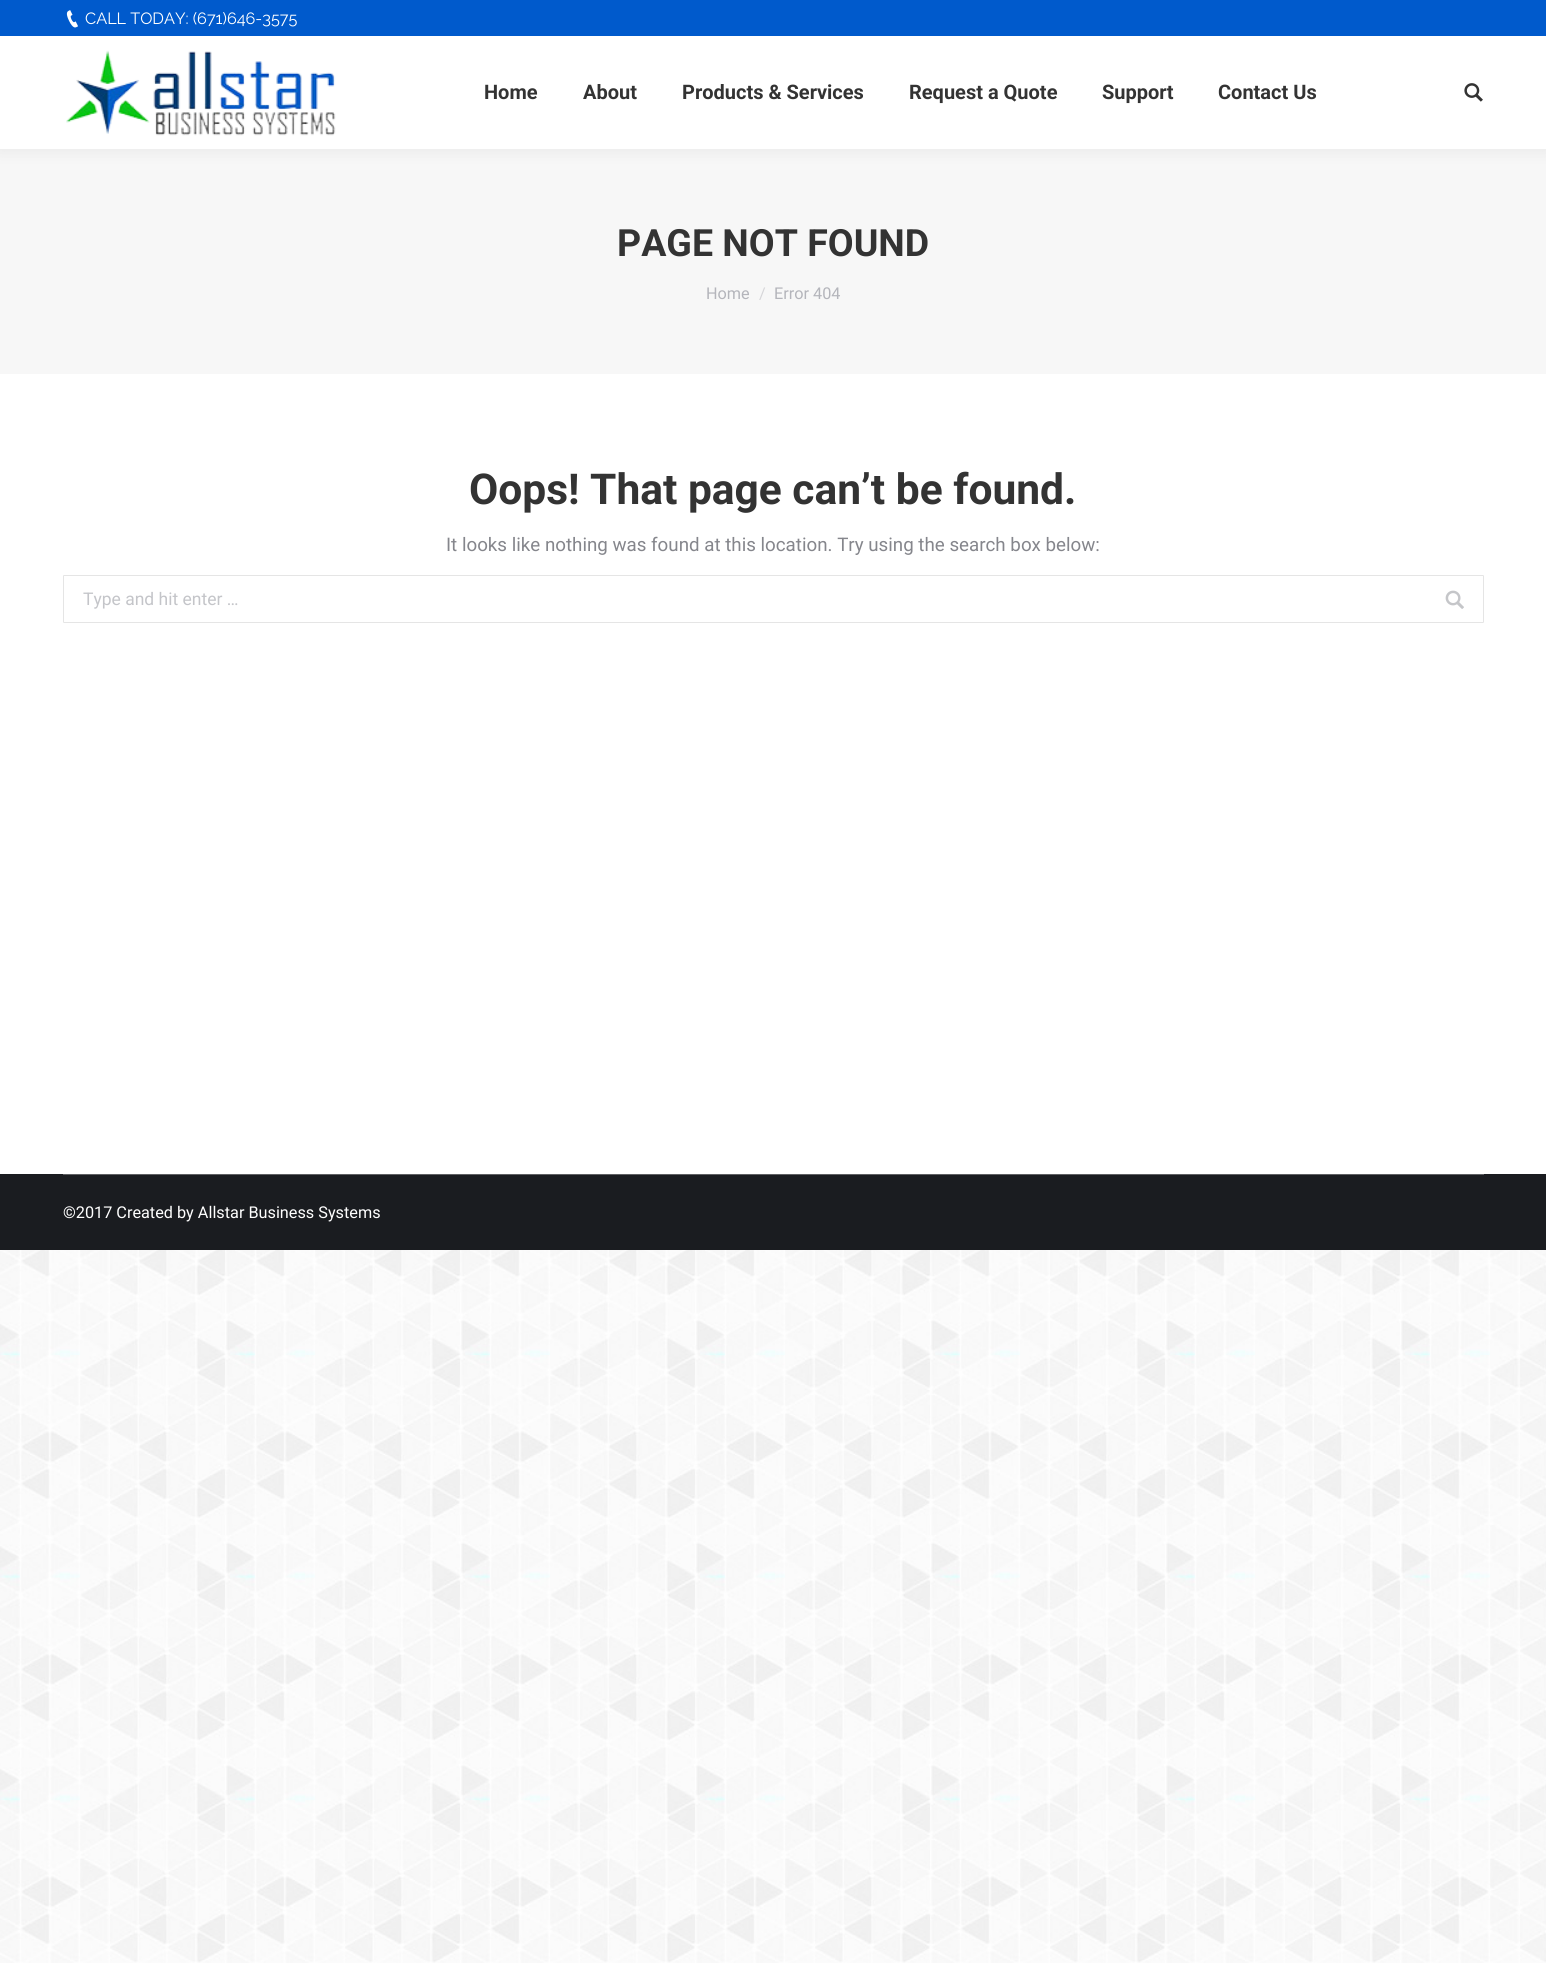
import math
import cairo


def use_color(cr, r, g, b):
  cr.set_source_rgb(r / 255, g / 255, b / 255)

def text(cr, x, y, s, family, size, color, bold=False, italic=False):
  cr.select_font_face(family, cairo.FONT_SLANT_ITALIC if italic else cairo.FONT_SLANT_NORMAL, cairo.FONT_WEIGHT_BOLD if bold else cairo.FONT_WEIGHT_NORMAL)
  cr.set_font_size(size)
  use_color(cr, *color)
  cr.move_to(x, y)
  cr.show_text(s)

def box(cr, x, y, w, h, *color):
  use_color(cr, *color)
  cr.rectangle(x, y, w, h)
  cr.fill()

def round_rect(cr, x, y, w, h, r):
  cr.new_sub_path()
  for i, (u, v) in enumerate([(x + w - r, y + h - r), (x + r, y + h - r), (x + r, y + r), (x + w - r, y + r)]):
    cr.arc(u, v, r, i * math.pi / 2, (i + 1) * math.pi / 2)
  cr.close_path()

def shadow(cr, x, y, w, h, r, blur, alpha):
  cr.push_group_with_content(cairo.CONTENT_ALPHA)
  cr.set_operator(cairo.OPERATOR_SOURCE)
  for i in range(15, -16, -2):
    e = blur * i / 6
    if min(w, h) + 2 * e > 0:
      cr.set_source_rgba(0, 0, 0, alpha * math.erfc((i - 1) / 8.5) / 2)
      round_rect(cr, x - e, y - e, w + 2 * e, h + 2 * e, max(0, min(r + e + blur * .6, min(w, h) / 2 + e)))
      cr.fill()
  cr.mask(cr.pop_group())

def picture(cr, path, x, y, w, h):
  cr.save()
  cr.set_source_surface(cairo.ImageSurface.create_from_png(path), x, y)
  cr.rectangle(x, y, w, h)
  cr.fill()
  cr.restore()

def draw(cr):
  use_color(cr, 255, 255, 255)
  cr.paint()
  picture(cr, "img_01.png", 0, 1250, 1546, 713)
  box(cr, 0, 149, 1546, 225, 247, 247, 247)
  use_color(cr, 0, 0, 0)
  shadow(cr, -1, -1, 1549, 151, 0, 9.5, 0.07)
  box(cr, 0, 36, 1546, 113, 255, 255, 255)
  box(cr, 0, 0, 1546, 36, 0, 90, 204)
  picture(cr, "img_02.png", 66, 10, 12, 18)
  picture(cr, "img_03.png", 66, 50, 270, 86)
  picture(cr, "img_04.png", 1464, 83, 19, 19)
  round_rect(cr, 63.5, 575.5, 1420, 47, 0.5)
  use_color(cr, 229, 229, 229)
  cr.set_line_width(1)
  cr.stroke()
  picture(cr, "img_05.png", 1445, 590, 19, 19)
  box(cr, 0, 1174, 1546, 76, 26, 28, 32)
  box(cr, 63, 1174, 1421, 1, 95, 96, 99)
  text(cr, 85, 24, "CALL TODAY: (671)646-3575", "Raleway", 16.25, (255, 255, 255))
  text(cr, 484, 99, "Home", "Roboto", 20, (51, 51, 51), bold=True)
  text(cr, 583, 99, "About", "Roboto", 20, (51, 51, 51), bold=True)
  text(cr, 682, 99, "Products & Services", "Roboto", 20, (51, 51, 51), bold=True)
  text(cr, 909, 99, "Request a Quote", "Roboto", 20, (51, 51, 51), bold=True)
  text(cr, 1102, 99, "Support", "Roboto", 20, (51, 51, 51), bold=True)
  text(cr, 1218, 99, "Contact Us", "Roboto", 20, (51, 51, 51), bold=True)
  text(cr, 617, 256, "PAGE NOT FOUND", "Roboto", 37.5, (51, 51, 51), bold=True)
  text(cr, 706, 299, "Home", "Roboto", 16.25, (180, 181, 187))
  text(cr, 759, 299, "/", "Roboto", 16.25, (214, 214, 217))
  text(cr, 774, 299, "Error 404", "Roboto", 16.25, (180, 181, 187))
  text(cr, 469, 504, "Oops! That page can’t be found.", "Roboto", 42.5, (51, 51, 51), bold=True)
  text(cr, 446, 551, "It looks like nothing was found at this location. Try using the search box below:", "Roboto", 18.75, (133, 134, 140))
  text(cr, 83, 605, "Type and hit enter …", "Roboto", 17.5, (196, 197, 201))
  text(cr, 63, 1218, "©2017 Created by Allstar Business Systems", "Roboto", 16.25, (255, 255, 255))


surface = cairo.ImageSurface(cairo.FORMAT_RGB24, 1546, 1963)
cr = cairo.Context(surface)
options = cairo.FontOptions()
options.set_hint_metrics(cairo.HINT_METRICS_OFF)
options.set_hint_style(cairo.HINT_STYLE_NONE)
cr.set_font_options(options)
cr.set_miter_limit(4)
draw(cr)
surface.write_to_png("out.png")
